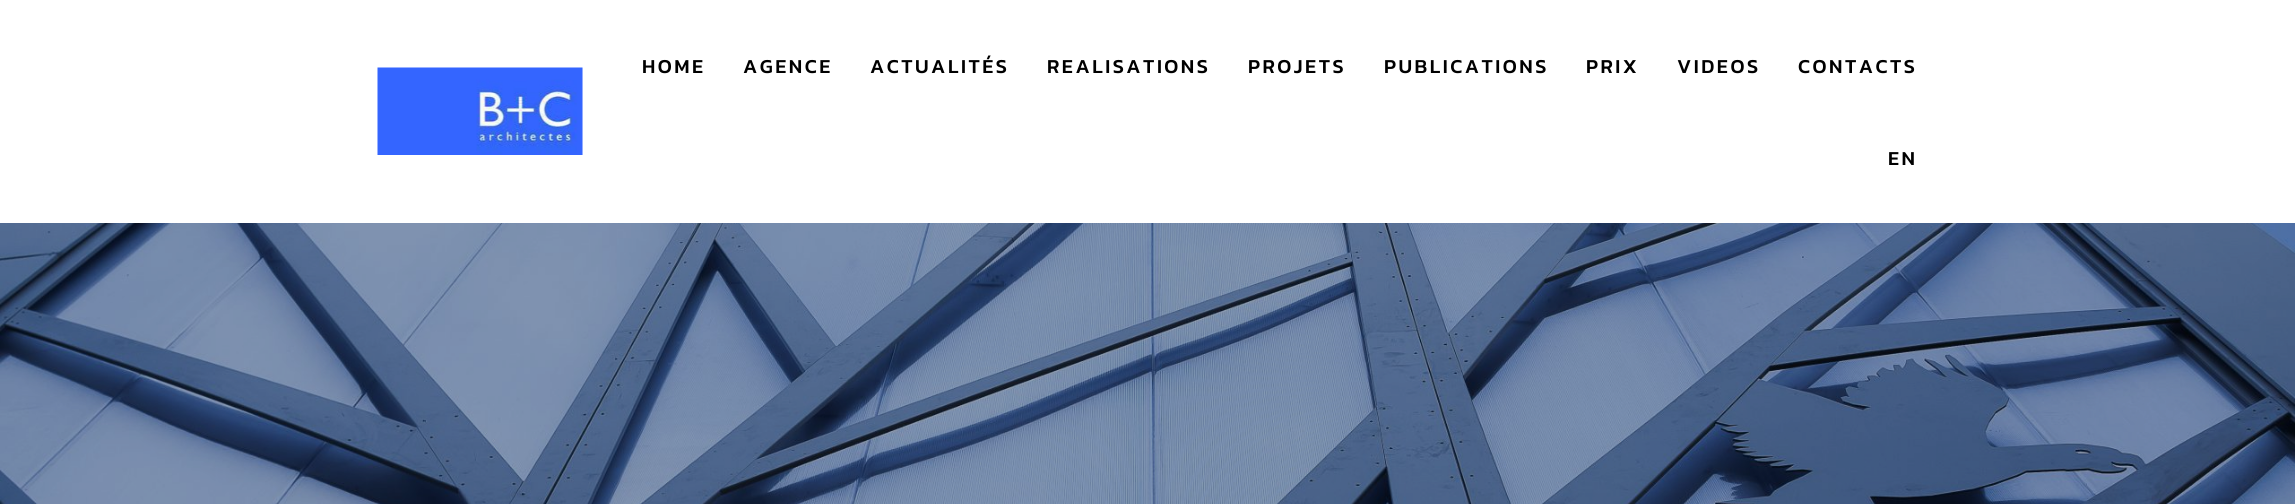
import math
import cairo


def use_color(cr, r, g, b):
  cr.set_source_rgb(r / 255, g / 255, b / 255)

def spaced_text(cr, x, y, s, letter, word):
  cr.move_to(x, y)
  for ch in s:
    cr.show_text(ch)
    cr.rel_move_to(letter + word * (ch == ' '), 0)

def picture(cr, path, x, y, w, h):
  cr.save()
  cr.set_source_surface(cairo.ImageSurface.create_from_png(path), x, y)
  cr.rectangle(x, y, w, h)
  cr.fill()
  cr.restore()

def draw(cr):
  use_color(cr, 255, 255, 255)
  cr.paint()
  picture(cr, "img_01.png", 377, 67, 206, 88)
  picture(cr, "img_02.png", 0, 223, 2295, 281)
  cr.select_font_face("Kanit Medium")
  cr.set_font_size(20)
  use_color(cr, 0, 0, 0)
  spaced_text(cr, 642, 73, "HOME", 2.5, 0)
  spaced_text(cr, 743, 73, "AGENCE", 2.5, 0)
  spaced_text(cr, 870, 73, "ACTUALITÉS", 2.5, 0)
  spaced_text(cr, 1047, 73, "REALISATIONS", 2.5, 0)
  spaced_text(cr, 1248, 73, "PROJETS", 2.5, 0)
  spaced_text(cr, 1384, 73, "PUBLICATIONS", 2.5, 0)
  spaced_text(cr, 1586, 73, "PRIX", 2.5, 0)
  spaced_text(cr, 1677, 73, "VIDEOS", 2.5, 0)
  spaced_text(cr, 1798, 73, "CONTACTS", 2.5, 0)
  spaced_text(cr, 1888, 165, "EN", 2.5, 0)


surface = cairo.ImageSurface(cairo.FORMAT_RGB24, 2295, 504)
cr = cairo.Context(surface)
options = cairo.FontOptions()
options.set_hint_metrics(cairo.HINT_METRICS_OFF)
options.set_hint_style(cairo.HINT_STYLE_NONE)
cr.set_font_options(options)
cr.set_miter_limit(4)
draw(cr)
surface.write_to_png("out.png")
